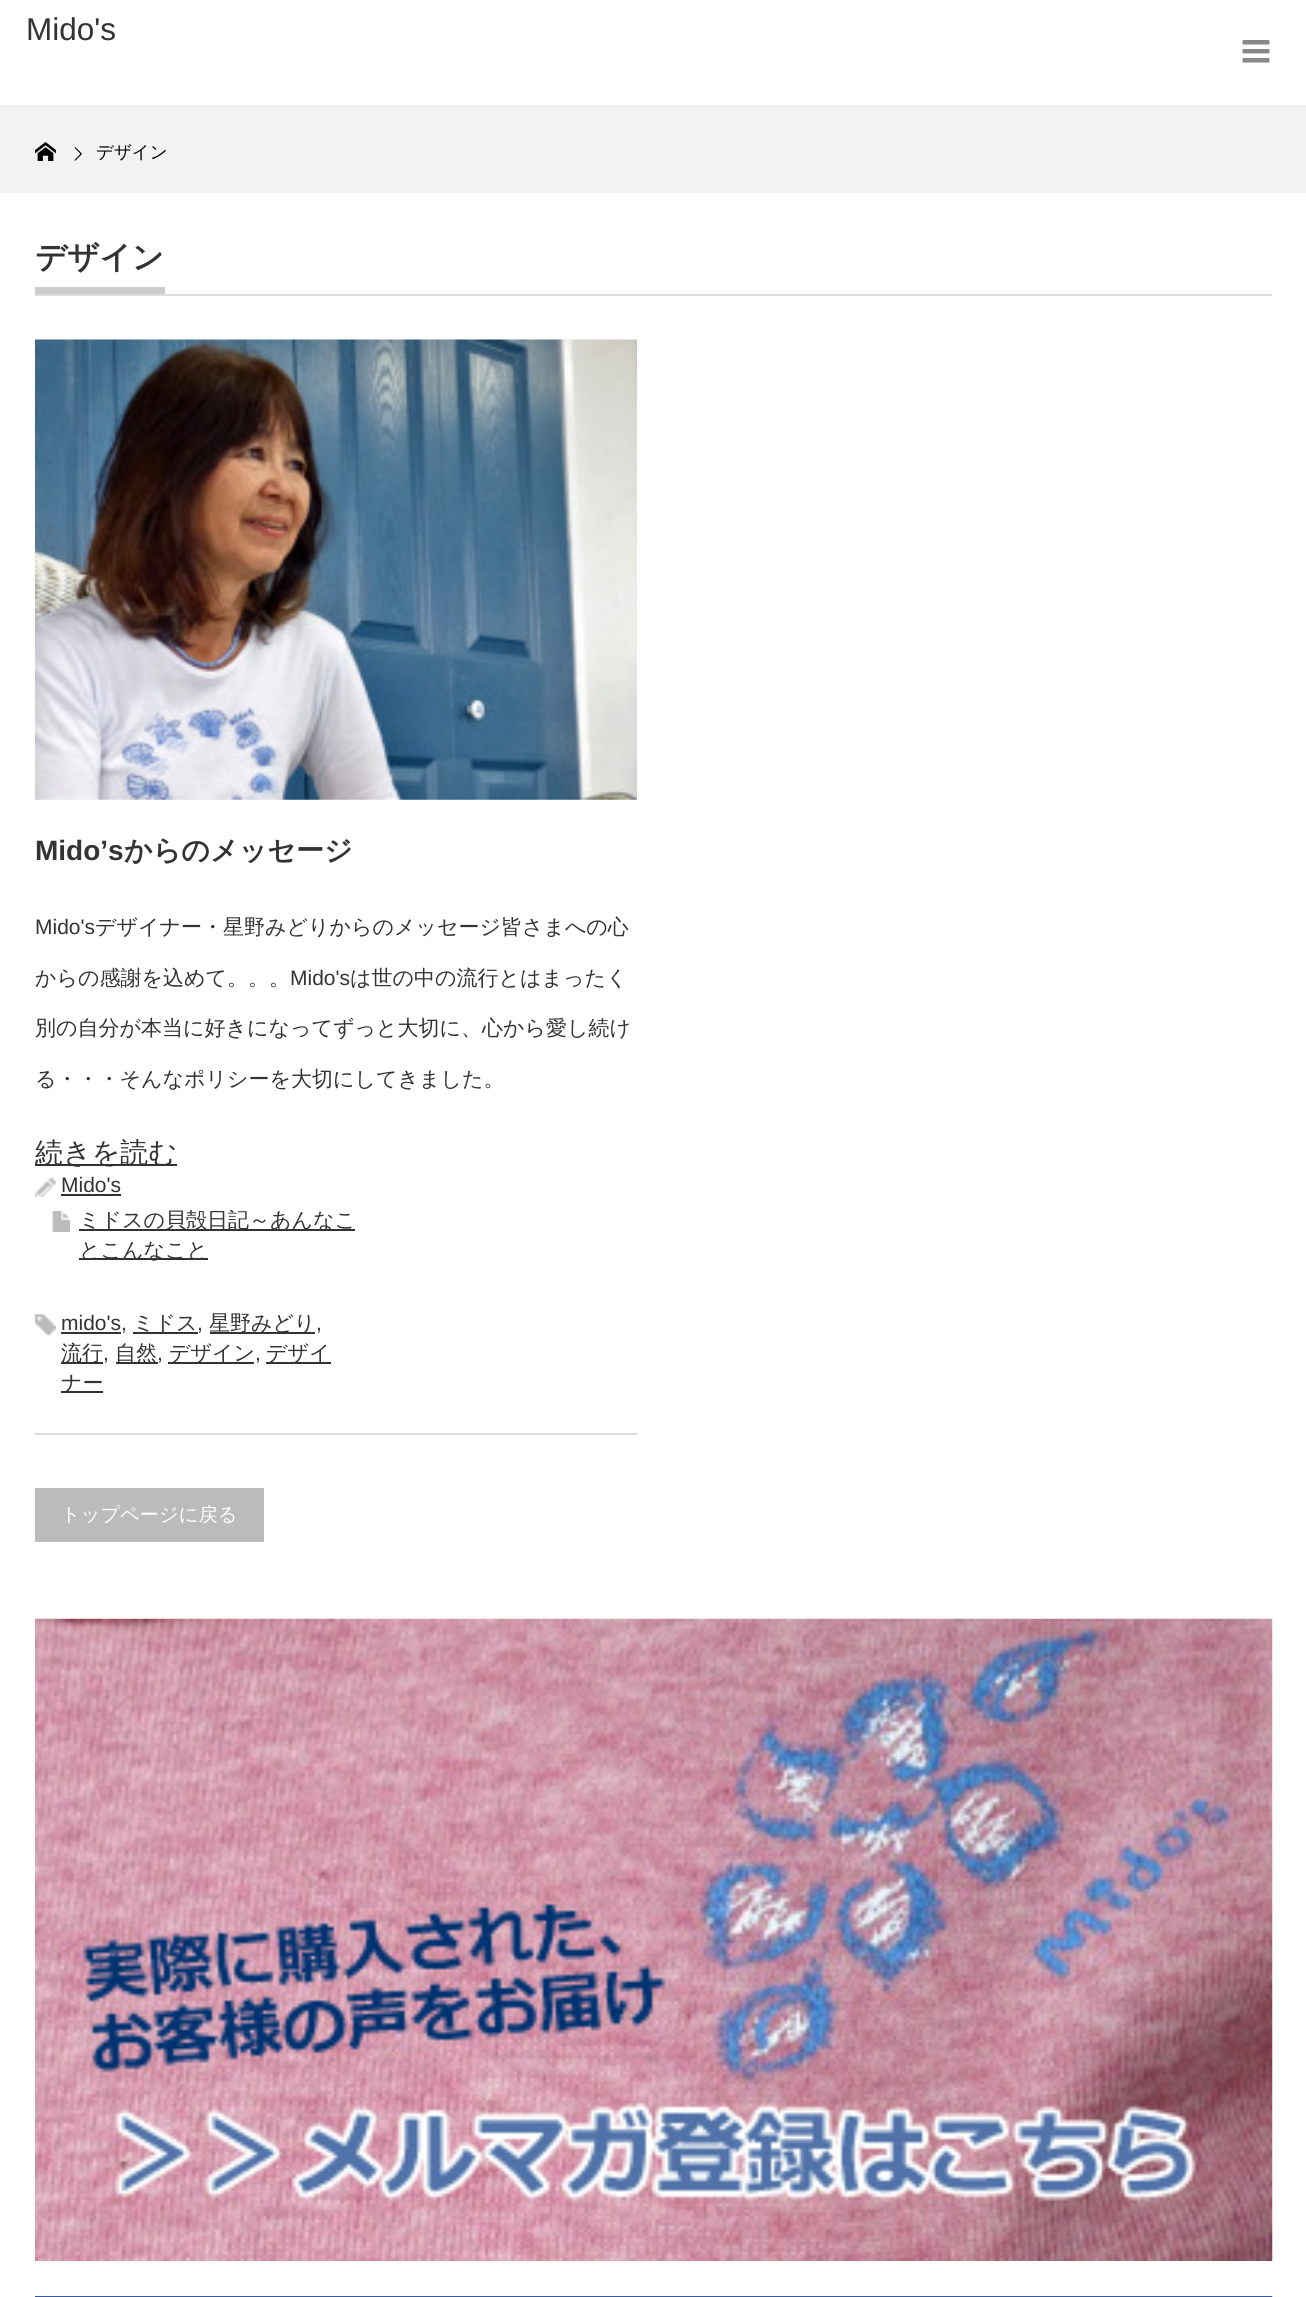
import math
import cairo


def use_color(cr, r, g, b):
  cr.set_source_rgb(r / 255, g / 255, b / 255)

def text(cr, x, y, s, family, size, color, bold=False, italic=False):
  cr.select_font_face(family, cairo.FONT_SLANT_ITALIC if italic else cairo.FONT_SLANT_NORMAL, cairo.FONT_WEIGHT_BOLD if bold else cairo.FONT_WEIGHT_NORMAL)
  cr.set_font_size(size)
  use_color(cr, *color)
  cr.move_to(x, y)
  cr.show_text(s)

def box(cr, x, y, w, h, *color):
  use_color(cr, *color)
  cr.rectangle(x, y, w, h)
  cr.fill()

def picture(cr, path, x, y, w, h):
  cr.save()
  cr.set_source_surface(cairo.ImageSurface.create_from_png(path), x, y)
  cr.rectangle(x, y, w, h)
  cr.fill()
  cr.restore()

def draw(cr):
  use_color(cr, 255, 255, 255)
  cr.paint()
  picture(cr, "img_01.png", 1242, 40, 28, 23)
  box(cr, 0, 105, 1306, 88, 242, 242, 242)
  picture(cr, "img_02.png", 35, 142, 21, 19)
  picture(cr, "img_03.png", 74, 147, 8, 14)
  box(cr, 35, 294, 1237, 2, 221, 221, 221)
  box(cr, 35, 287, 130, 7, 204, 204, 204)
  box(cr, 35, 1433, 602, 2, 221, 221, 221)
  picture(cr, "img_04.png", 35, 339, 602, 461)
  box(cr, 35, 1164, 142, 2, 51, 51, 51)
  picture(cr, "img_05.png", 35, 1177, 21, 20)
  box(cr, 61, 1194, 60, 2, 51, 51, 51)
  picture(cr, "img_06.png", 52, 1211, 18, 21)
  box(cr, 79, 1229, 276, 2, 51, 51, 51)
  box(cr, 79, 1258, 129, 2, 51, 51, 51)
  picture(cr, "img_07.png", 35, 1314, 21, 22)
  box(cr, 61, 1332, 60, 2, 51, 51, 51)
  box(cr, 133, 1332, 65, 2, 51, 51, 51)
  box(cr, 210, 1332, 105, 2, 51, 51, 51)
  box(cr, 61, 1362, 42, 2, 51, 51, 51)
  box(cr, 116, 1362, 42, 2, 51, 51, 51)
  box(cr, 168, 1362, 86, 2, 51, 51, 51)
  box(cr, 266, 1362, 65, 2, 51, 51, 51)
  box(cr, 61, 1391, 42, 2, 51, 51, 51)
  box(cr, 35, 1488, 229, 54, 187, 187, 187)
  picture(cr, "img_08.png", 35, 1618, 1238, 643)
  picture(cr, "img_09.png", 35, 2296, 1238, 1)
  text(cr, 26, 40, "Mido's", "Liberation Sans", 31.5, (51, 51, 51))
  text(cr, 96, 158, "デザイン", "WenQuanYi Zen Hei Medium", 17.5, (0, 0, 0))
  text(cr, 35, 268, "デザイン", "WenQuanYi Zen Hei", 31.5, (51, 51, 51), bold=True)
  text(cr, 35, 860, "Mido’s", "Liberation Sans", 28, (51, 51, 51), bold=True)
  text(cr, 124, 860, "からのメッセージ", "WenQuanYi Zen Hei", 28, (51, 51, 51), bold=True)
  text(cr, 35, 934, "Mido's", "Liberation Sans", 21, (51, 51, 51))
  text(cr, 95, 934, "デザイナー・星野みどりからのメッセージ皆さまへの心", "WenQuanYi Zen Hei Medium", 21, (51, 51, 51))
  text(cr, 35, 985, "からの感謝を込めて。。。", "WenQuanYi Zen Hei Medium", 21, (51, 51, 51))
  text(cr, 290, 985, "Mido's", "Liberation Sans", 21, (51, 51, 51))
  text(cr, 350, 985, "は世の中の流行とはまったく", "WenQuanYi Zen Hei Medium", 21, (51, 51, 51))
  text(cr, 35, 1035, "別の自分が本当に好きになってずっと大切に、心から愛し続け", "WenQuanYi Zen Hei Medium", 21, (51, 51, 51))
  text(cr, 35, 1086, "る・・・そんなポリシーを大切にしてきました。", "WenQuanYi Zen Hei Medium", 21, (51, 51, 51))
  text(cr, 35, 1162, "続きを読む", "WenQuanYi Zen Hei Medium", 28, (51, 51, 51))
  text(cr, 61, 1192, "Mido's", "Liberation Sans", 21, (51, 51, 51))
  text(cr, 79, 1227, "ミドスの貝殻日記～あんなこ", "WenQuanYi Zen Hei Medium", 21, (51, 51, 51))
  text(cr, 79, 1257, "とこんなこと", "WenQuanYi Zen Hei Medium", 21, (51, 51, 51))
  text(cr, 61, 1330, "mido's,", "Liberation Sans", 21, (51, 51, 51))
  text(cr, 133, 1330, "ミドス", "WenQuanYi Zen Hei Medium", 21, (51, 51, 51))
  text(cr, 197, 1330, ",", "Liberation Sans", 21, (51, 51, 51))
  text(cr, 209, 1330, "星野みどり", "WenQuanYi Zen Hei Medium", 21, (51, 51, 51))
  text(cr, 316, 1330, ",", "Liberation Sans", 21, (51, 51, 51))
  text(cr, 61, 1360, "流行", "WenQuanYi Zen Hei Medium", 21, (51, 51, 51))
  text(cr, 103, 1360, ",", "Liberation Sans", 21, (51, 51, 51))
  text(cr, 115, 1360, "自然", "WenQuanYi Zen Hei Medium", 21, (51, 51, 51))
  text(cr, 157, 1360, ",", "Liberation Sans", 21, (51, 51, 51))
  text(cr, 169, 1360, "デザイン", "WenQuanYi Zen Hei Medium", 21, (51, 51, 51))
  text(cr, 255, 1360, ",", "Liberation Sans", 21, (51, 51, 51))
  text(cr, 266, 1360, "デザイ", "WenQuanYi Zen Hei Medium", 21, (51, 51, 51))
  text(cr, 61, 1390, "ナー", "WenQuanYi Zen Hei Medium", 21, (51, 51, 51))
  text(cr, 61, 1521, "トップページに戻る", "WenQuanYi Zen Hei Medium", 19.25, (255, 255, 255))


surface = cairo.ImageSurface(cairo.FORMAT_RGB24, 1306, 2297)
cr = cairo.Context(surface)
options = cairo.FontOptions()
options.set_hint_metrics(cairo.HINT_METRICS_OFF)
options.set_hint_style(cairo.HINT_STYLE_NONE)
cr.set_font_options(options)
cr.set_miter_limit(4)
draw(cr)
surface.write_to_png("out.png")
